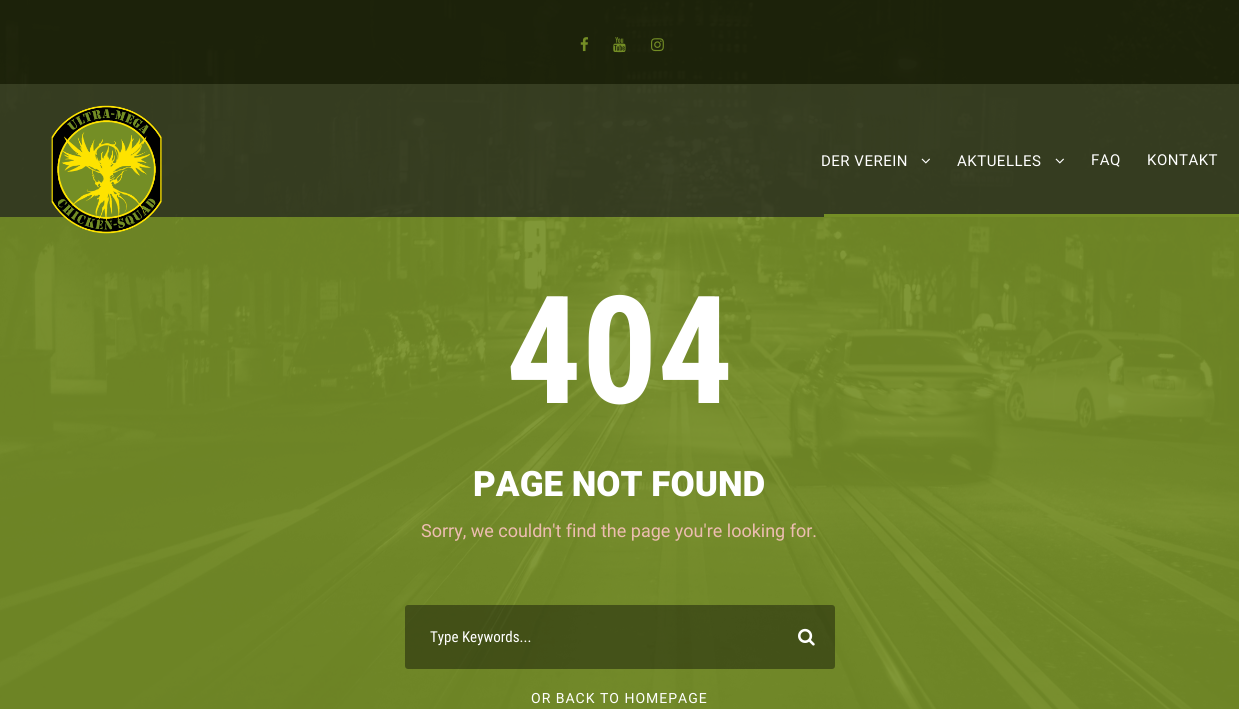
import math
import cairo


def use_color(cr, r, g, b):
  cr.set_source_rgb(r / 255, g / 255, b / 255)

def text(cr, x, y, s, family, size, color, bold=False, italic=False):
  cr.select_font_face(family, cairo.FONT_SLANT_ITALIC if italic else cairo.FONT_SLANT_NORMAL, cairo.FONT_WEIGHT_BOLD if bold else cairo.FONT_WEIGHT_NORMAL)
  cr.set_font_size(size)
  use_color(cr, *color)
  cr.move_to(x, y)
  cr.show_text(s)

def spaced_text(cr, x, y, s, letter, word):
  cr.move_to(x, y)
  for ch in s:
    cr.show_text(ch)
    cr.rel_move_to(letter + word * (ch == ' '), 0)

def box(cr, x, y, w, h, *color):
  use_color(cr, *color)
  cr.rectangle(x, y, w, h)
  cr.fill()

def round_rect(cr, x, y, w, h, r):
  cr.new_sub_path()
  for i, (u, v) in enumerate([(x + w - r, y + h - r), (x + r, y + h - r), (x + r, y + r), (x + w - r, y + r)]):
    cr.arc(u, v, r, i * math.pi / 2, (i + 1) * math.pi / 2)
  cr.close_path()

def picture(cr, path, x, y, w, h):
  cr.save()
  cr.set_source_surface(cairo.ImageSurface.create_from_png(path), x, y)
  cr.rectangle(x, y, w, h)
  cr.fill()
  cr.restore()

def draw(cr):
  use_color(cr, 116, 142, 37)
  cr.paint()
  picture(cr, "img_07.png", 0, 0, 1239, 709)
  cr.set_source_rgba(0, 0, 0, 0.74)
  cr.rectangle(0, 0, 1239, 84)
  cr.fill()
  picture(cr, "img_01.png", 580, 37, 8, 15)
  picture(cr, "img_02.png", 613, 37, 13, 16)
  picture(cr, "img_03.png", 651, 38, 13, 14)
  cr.set_source_rgba(0.118, 0.118, 0.118, 0.7)
  cr.rectangle(0, 84, 1239, 133)
  cr.fill()
  picture(cr, "img_04.png", 51, 105, 111, 129)
  picture(cr, "img_05.png", 921, 158, 9, 6)
  picture(cr, "img_06.png", 1055, 158, 9, 6)
  box(cr, 824, 214, 415, 3, 116, 142, 37)
  cr.set_source_rgba(0, 0, 0, 0.4)
  round_rect(cr, 405, 605, 430, 64, 3)
  cr.fill()
  picture(cr, "img_08.png", 798, 628, 17, 18)
  cr.select_font_face("Roboto")
  cr.set_font_size(15)
  use_color(cr, 255, 255, 255)
  spaced_text(cr, 821, 166, "DER VEREIN", 0.5, 0)
  spaced_text(cr, 957, 166, "AKTUELLES", 0.5, 0)
  spaced_text(cr, 1091, 165, "FAQ", 0.5, 0)
  spaced_text(cr, 1147, 165, "KONTAKT", 0.5, 0)
  text(cr, 506, 403, "404", "Roboto Condensed", 150, (255, 255, 255), bold=True)
  text(cr, 473, 496, "PAGE NOT FOUND", "Roboto Black", 35, (255, 255, 255))
  text(cr, 421, 537, "Sorry, we couldn't find the page you're looking for.", "Roboto", 18, (237, 189, 177))
  text(cr, 430, 642, "Type Keywords...", "Roboto Condensed", 15, (255, 255, 255))
  cr.select_font_face("Roboto")
  cr.set_font_size(14)
  spaced_text(cr, 531, 703, "OR BACK TO HOMEPAGE", 1, 0)


surface = cairo.ImageSurface(cairo.FORMAT_RGB24, 1239, 709)
cr = cairo.Context(surface)
options = cairo.FontOptions()
options.set_hint_metrics(cairo.HINT_METRICS_OFF)
options.set_hint_style(cairo.HINT_STYLE_NONE)
cr.set_font_options(options)
cr.set_miter_limit(4)
draw(cr)
surface.write_to_png("out.png")
